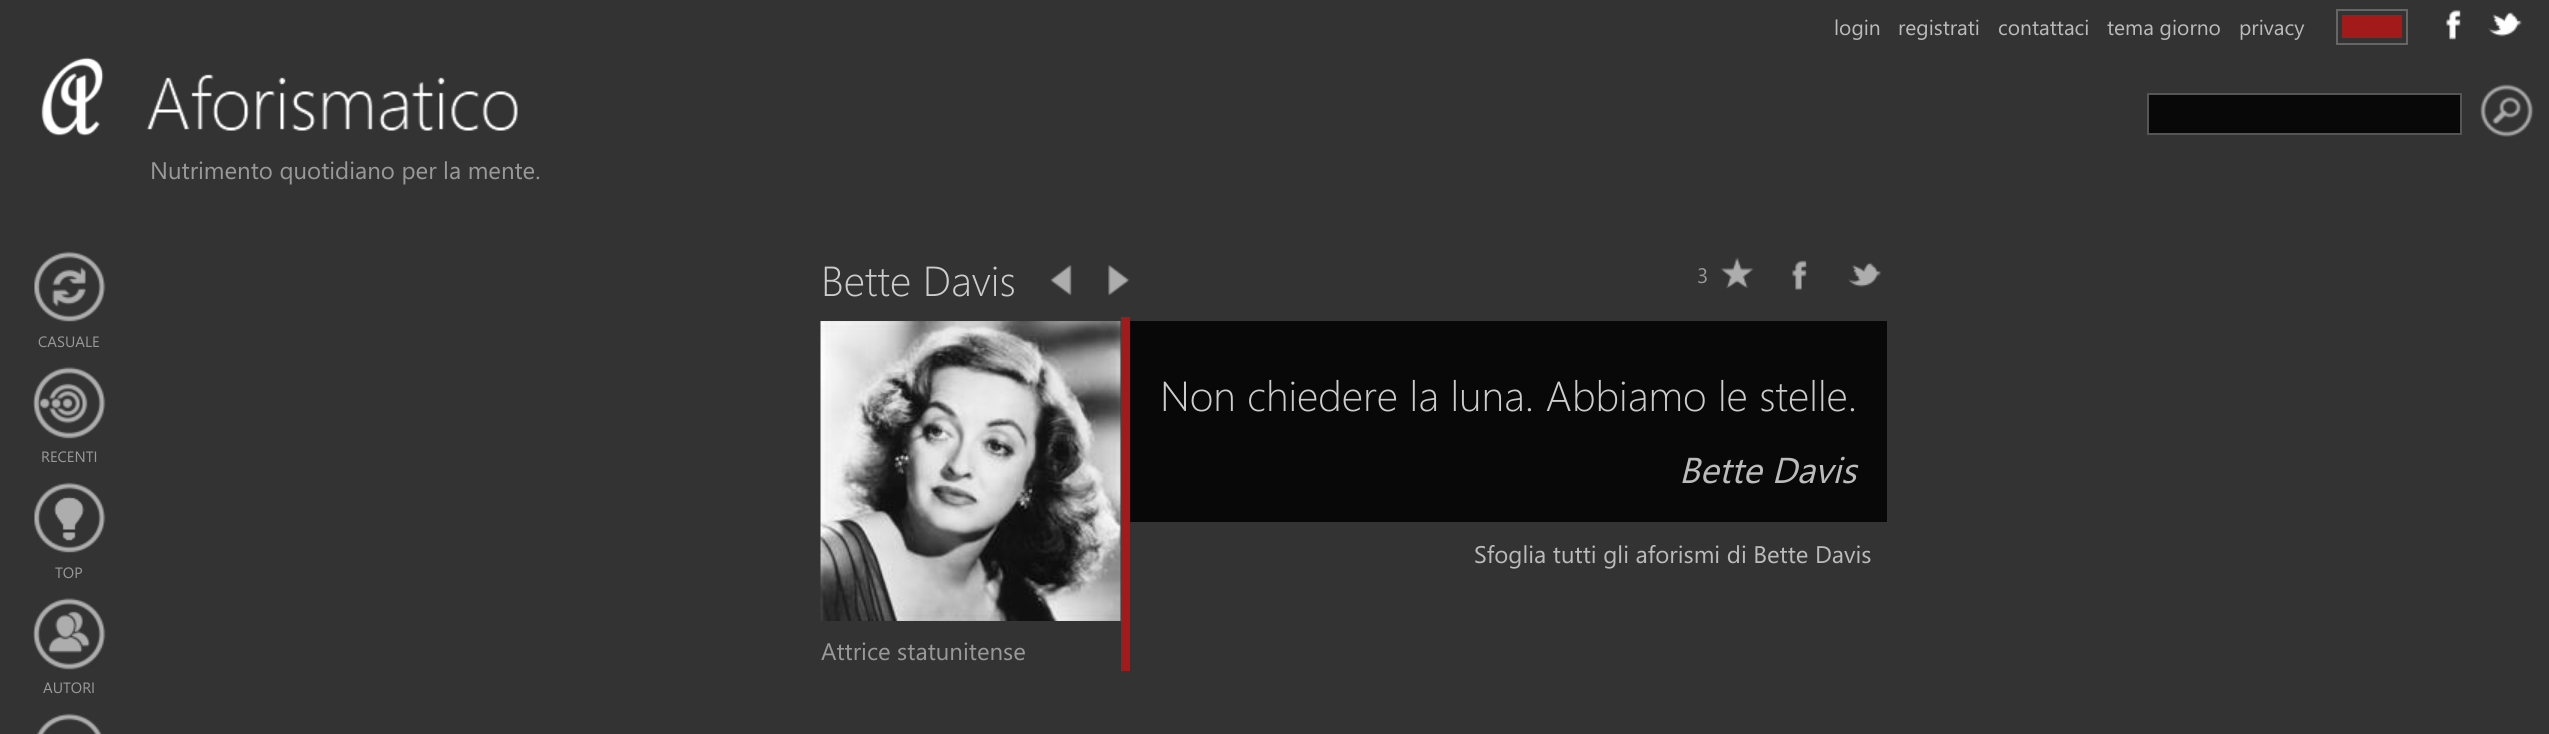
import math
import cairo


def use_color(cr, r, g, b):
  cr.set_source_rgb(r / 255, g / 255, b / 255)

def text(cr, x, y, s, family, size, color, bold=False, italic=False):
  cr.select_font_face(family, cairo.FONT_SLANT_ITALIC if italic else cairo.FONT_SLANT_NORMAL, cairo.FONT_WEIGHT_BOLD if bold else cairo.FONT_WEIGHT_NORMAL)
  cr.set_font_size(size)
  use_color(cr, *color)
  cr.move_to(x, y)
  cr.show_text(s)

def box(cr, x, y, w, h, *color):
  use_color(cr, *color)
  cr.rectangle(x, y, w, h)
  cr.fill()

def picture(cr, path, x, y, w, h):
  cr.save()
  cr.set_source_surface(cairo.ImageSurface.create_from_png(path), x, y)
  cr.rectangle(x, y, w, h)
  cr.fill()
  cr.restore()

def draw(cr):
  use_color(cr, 51, 51, 51)
  cr.paint()
  cr.rectangle(2337, 10, 70, 34)
  use_color(cr, 102, 102, 102)
  cr.stroke()
  box(cr, 2342, 15, 60, 23, 163, 26, 26)
  picture(cr, "img_01.png", 2446, 10, 15, 30)
  picture(cr, "img_02.png", 2488, 12, 34, 25)
  use_color(cr, 8, 8, 8)
  cr.rectangle(2148, 94, 313, 40)
  cr.fill_preserve()
  use_color(cr, 85, 85, 85)
  cr.stroke()
  picture(cr, "img_03.png", 2480, 84, 54, 53)
  picture(cr, "img_04.png", 41, 57, 63, 79)
  picture(cr, "img_05.png", 146, 74, 372, 57)
  picture(cr, "img_06.png", 34, 251, 72, 71)
  picture(cr, "img_07.png", 33, 367, 73, 72)
  picture(cr, "img_08.png", 34, 482, 72, 71)
  picture(cr, "img_09.png", 33, 598, 73, 72)
  picture(cr, "img_10.png", 37, 713, 65, 21)
  picture(cr, "img_11.png", 1050, 265, 22, 31)
  picture(cr, "img_12.png", 1108, 265, 22, 31)
  picture(cr, "img_13.png", 1720, 257, 34, 32)
  picture(cr, "img_14.png", 1792, 260, 15, 30)
  picture(cr, "img_15.png", 1848, 262, 34, 25)
  box(cr, 1130, 321, 757, 201, 8, 8, 8)
  box(cr, 1121, 317, 9, 354, 163, 26, 26)
  picture(cr, "img_16.png", 820, 321, 301, 300)
  text(cr, 1834, 35, "login", "Segoe UI", 21, (187, 187, 187))
  text(cr, 1898, 35, "registrati", "Segoe UI", 21, (187, 187, 187))
  text(cr, 1998, 35, "contattaci", "Segoe UI", 21, (187, 187, 187))
  text(cr, 2107, 35, "tema giorno", "Segoe UI", 21, (187, 187, 187))
  text(cr, 2239, 35, "privacy", "Segoe UI", 21, (187, 187, 187))
  text(cr, 150, 179, "Nutrimento quotidiano per la mente.", "Segoe UI", 24, (153, 153, 153))
  text(cr, 38, 347, "CASUALE", "Segoe UI", 15, (153, 153, 153))
  text(cr, 41, 462, "RECENTI", "Segoe UI", 15, (153, 153, 153))
  text(cr, 55, 578, "TOP", "Segoe UI", 15, (153, 153, 153))
  text(cr, 43, 693, "AUTORI", "Segoe UI", 15, (153, 153, 153))
  text(cr, 821, 296, "Bette Davis", "Segoe UI Light", 42, (204, 204, 204))
  text(cr, 1697, 283, "3", "Segoe UI", 21, (153, 153, 153))
  text(cr, 1160, 411, "Non chiedere la luna. Abbiamo le stelle.", "Segoe UI Light", 42, (204, 204, 204))
  text(cr, 1679, 483, "Bette Davis", "Segoe UI", 36, (187, 187, 187), italic=True)
  text(cr, 1474, 563, "Sfoglia tutti gli aforismi di Bette Davis", "Segoe UI", 24, (187, 187, 187))
  text(cr, 821, 660, "Attrice statunitense", "Segoe UI", 24, (153, 153, 153))


surface = cairo.ImageSurface(cairo.FORMAT_RGB24, 2549, 734)
cr = cairo.Context(surface)
options = cairo.FontOptions()
options.set_hint_metrics(cairo.HINT_METRICS_OFF)
options.set_hint_style(cairo.HINT_STYLE_NONE)
cr.set_font_options(options)
cr.set_miter_limit(4)
draw(cr)
surface.write_to_png("out.png")
